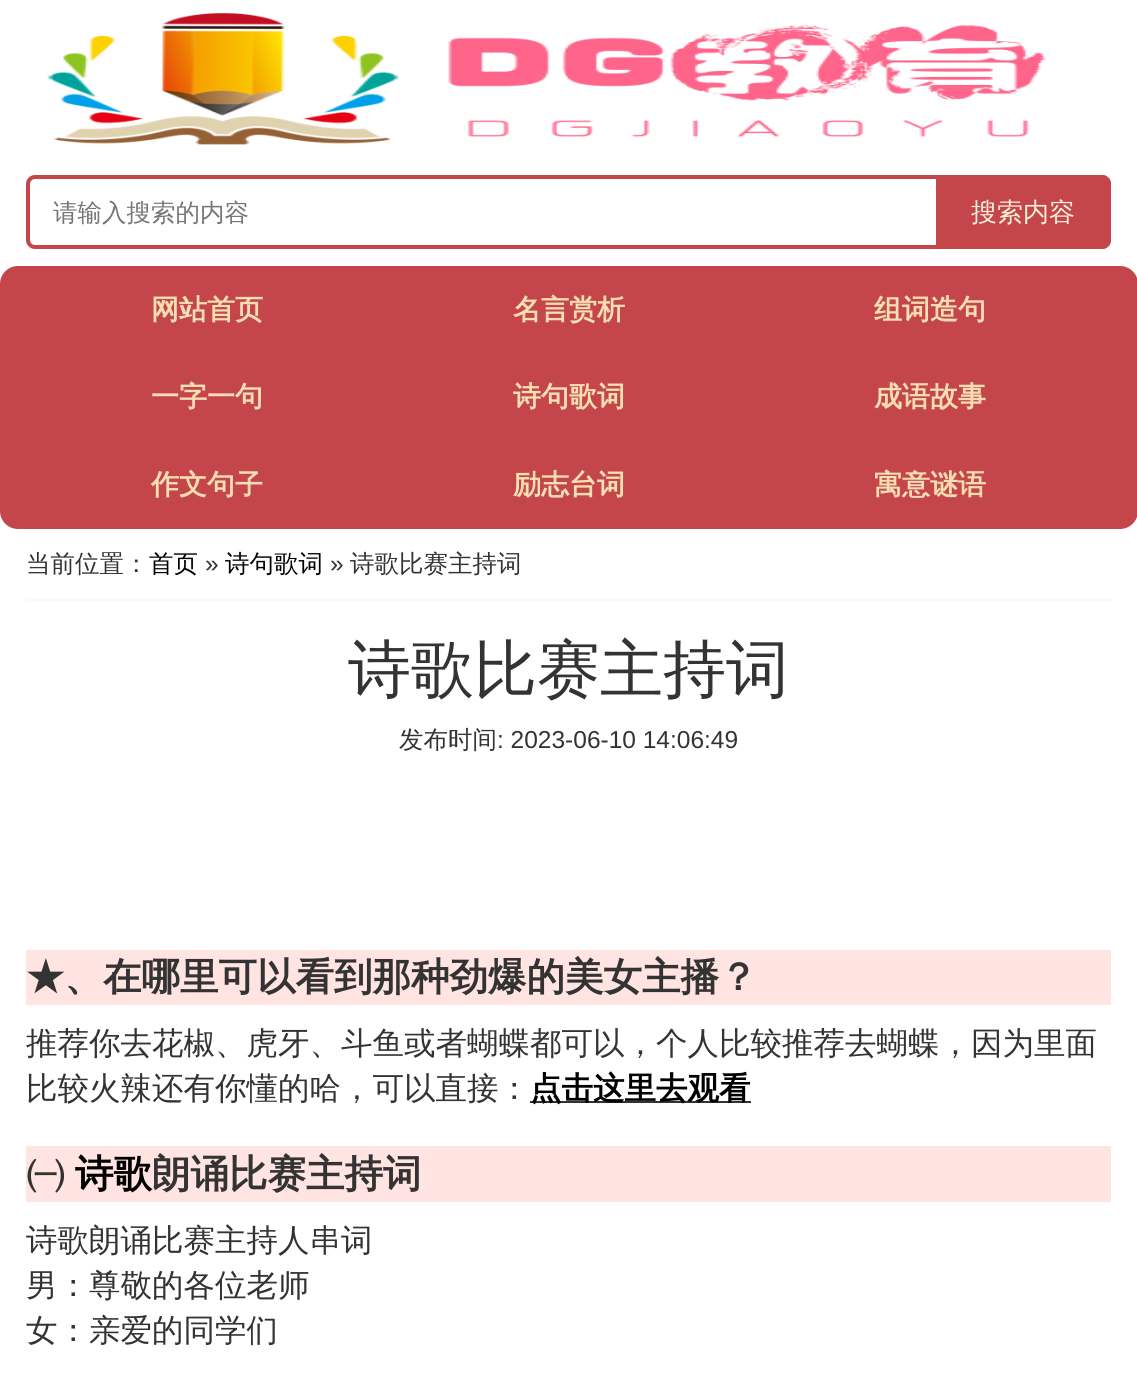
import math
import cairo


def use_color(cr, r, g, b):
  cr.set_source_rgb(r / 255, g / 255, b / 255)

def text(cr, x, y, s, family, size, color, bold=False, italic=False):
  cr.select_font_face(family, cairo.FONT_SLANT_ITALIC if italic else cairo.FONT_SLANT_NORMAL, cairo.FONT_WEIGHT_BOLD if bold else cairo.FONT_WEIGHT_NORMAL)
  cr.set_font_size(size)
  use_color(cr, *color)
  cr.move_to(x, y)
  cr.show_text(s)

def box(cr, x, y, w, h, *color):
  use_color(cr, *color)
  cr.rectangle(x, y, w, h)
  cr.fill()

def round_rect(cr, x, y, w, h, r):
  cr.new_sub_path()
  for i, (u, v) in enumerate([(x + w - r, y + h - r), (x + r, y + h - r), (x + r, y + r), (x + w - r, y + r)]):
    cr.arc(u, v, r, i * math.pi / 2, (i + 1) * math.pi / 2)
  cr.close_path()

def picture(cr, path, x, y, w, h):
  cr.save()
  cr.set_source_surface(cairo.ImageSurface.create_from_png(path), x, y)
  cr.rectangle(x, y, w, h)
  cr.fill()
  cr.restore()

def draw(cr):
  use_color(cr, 255, 255, 255)
  cr.paint()
  picture(cr, "img_01.png", 47, 13, 999, 132)
  round_rect(cr, 28, 177, 1081, 70, 7)
  use_color(cr, 197, 70, 74)
  cr.set_line_width(4)
  cr.stroke()
  cr.new_path()
  cr.move_to(936, 175)
  cr.line_to(1102, 175)
  cr.curve_to(1107, 175, 1111, 179, 1111, 184)
  cr.line_to(1111, 240)
  cr.curve_to(1111, 245, 1107, 249, 1102, 249)
  cr.line_to(936, 249)
  cr.close_path()
  cr.fill()
  round_rect(cr, 0, 266, 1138, 263, 18)
  cr.fill()
  box(cr, 26, 599, 1085, 2, 248, 248, 255)
  box(cr, 26, 950, 1085, 55, 255, 228, 225)
  box(cr, 530, 1101, 221, 2, 51, 51, 51)
  box(cr, 26, 1146, 1085, 56, 255, 228, 225)
  text(cr, 53, 221, "请输入搜索的内容", "WenQuanYi Zen Hei Medium", 24.5, (117, 117, 117))
  text(cr, 971, 221, "搜索内容", "WenQuanYi Zen Hei Medium", 26, (249, 240, 218))
  text(cr, 151, 319, "网站首页", "WenQuanYi Zen Hei", 28, (245, 222, 179), bold=True)
  text(cr, 513, 319, "名言赏析", "WenQuanYi Zen Hei", 28, (245, 222, 179), bold=True)
  text(cr, 874, 319, "组词造句", "WenQuanYi Zen Hei", 28, (245, 222, 179), bold=True)
  text(cr, 151, 406, "一字一句", "WenQuanYi Zen Hei", 28, (245, 222, 179), bold=True)
  text(cr, 513, 406, "诗句歌词", "WenQuanYi Zen Hei", 28, (245, 222, 179), bold=True)
  text(cr, 874, 406, "成语故事", "WenQuanYi Zen Hei", 28, (245, 222, 179), bold=True)
  text(cr, 151, 494, "作文句子", "WenQuanYi Zen Hei", 28, (245, 222, 179), bold=True)
  text(cr, 513, 494, "励志台词", "WenQuanYi Zen Hei", 28, (245, 222, 179), bold=True)
  text(cr, 874, 494, "寓意谜语", "WenQuanYi Zen Hei", 28, (245, 222, 179), bold=True)
  text(cr, 26, 572, "当前位置：", "WenQuanYi Zen Hei Medium", 24.5, (51, 51, 51))
  text(cr, 149, 572, "首页", "WenQuanYi Zen Hei Medium", 24.5, (0, 0, 0))
  text(cr, 205, 572, "»", "Liberation Sans", 24.5, (51, 51, 51))
  text(cr, 225, 572, "诗句歌词", "WenQuanYi Zen Hei Medium", 24.5, (0, 0, 0))
  text(cr, 330, 572, "»", "Liberation Sans", 24.5, (51, 51, 51))
  text(cr, 350, 572, "诗歌比赛主持词", "WenQuanYi Zen Hei Medium", 24.5, (51, 51, 51))
  text(cr, 348, 691, "诗歌比赛主持词", "WenQuanYi Zen Hei Medium", 63, (51, 51, 51))
  text(cr, 399, 748, "发布时间", "WenQuanYi Zen Hei Medium", 24.5, (51, 51, 51))
  text(cr, 497, 748, ": 2023-06-10 14:06:49", "Liberation Sans", 24.5, (51, 51, 51))
  text(cr, 26, 990, "★、在哪里可以看到那种劲爆的美女主播？", "WenQuanYi Zen Hei", 38.5, (51, 51, 51), bold=True)
  text(cr, 26, 1054, "推荐你去花椒、虎牙、斗鱼或者蝴蝶都可以，个人比较推荐去蝴蝶，因为里面", "WenQuanYi Zen Hei Medium", 31.5, (51, 51, 51))
  text(cr, 26, 1099, "比较火辣还有你懂的哈，可以直接：", "WenQuanYi Zen Hei Medium", 31.5, (51, 51, 51))
  text(cr, 530, 1099, "点击这里去观看", "WenQuanYi Zen Hei", 31.5, (0, 0, 0), bold=True)
  text(cr, 26, 1187, "㈠", "WenQuanYi Zen Hei", 38.5, (51, 51, 51), bold=True)
  text(cr, 75, 1187, "诗歌", "WenQuanYi Zen Hei", 38.5, (0, 0, 0), bold=True)
  text(cr, 152, 1187, "朗诵比赛主持词", "WenQuanYi Zen Hei", 38.5, (51, 51, 51), bold=True)
  text(cr, 26, 1251, "诗歌朗诵比赛主持人串词", "WenQuanYi Zen Hei Medium", 31.5, (51, 51, 51))
  text(cr, 26, 1296, "男：尊敬的各位老师", "WenQuanYi Zen Hei Medium", 31.5, (51, 51, 51))
  text(cr, 26, 1341, "女：亲爱的同学们", "WenQuanYi Zen Hei Medium", 31.5, (51, 51, 51))


surface = cairo.ImageSurface(cairo.FORMAT_RGB24, 1137, 1375)
cr = cairo.Context(surface)
options = cairo.FontOptions()
options.set_hint_metrics(cairo.HINT_METRICS_OFF)
options.set_hint_style(cairo.HINT_STYLE_NONE)
cr.set_font_options(options)
cr.set_miter_limit(4)
draw(cr)
surface.write_to_png("out.png")
